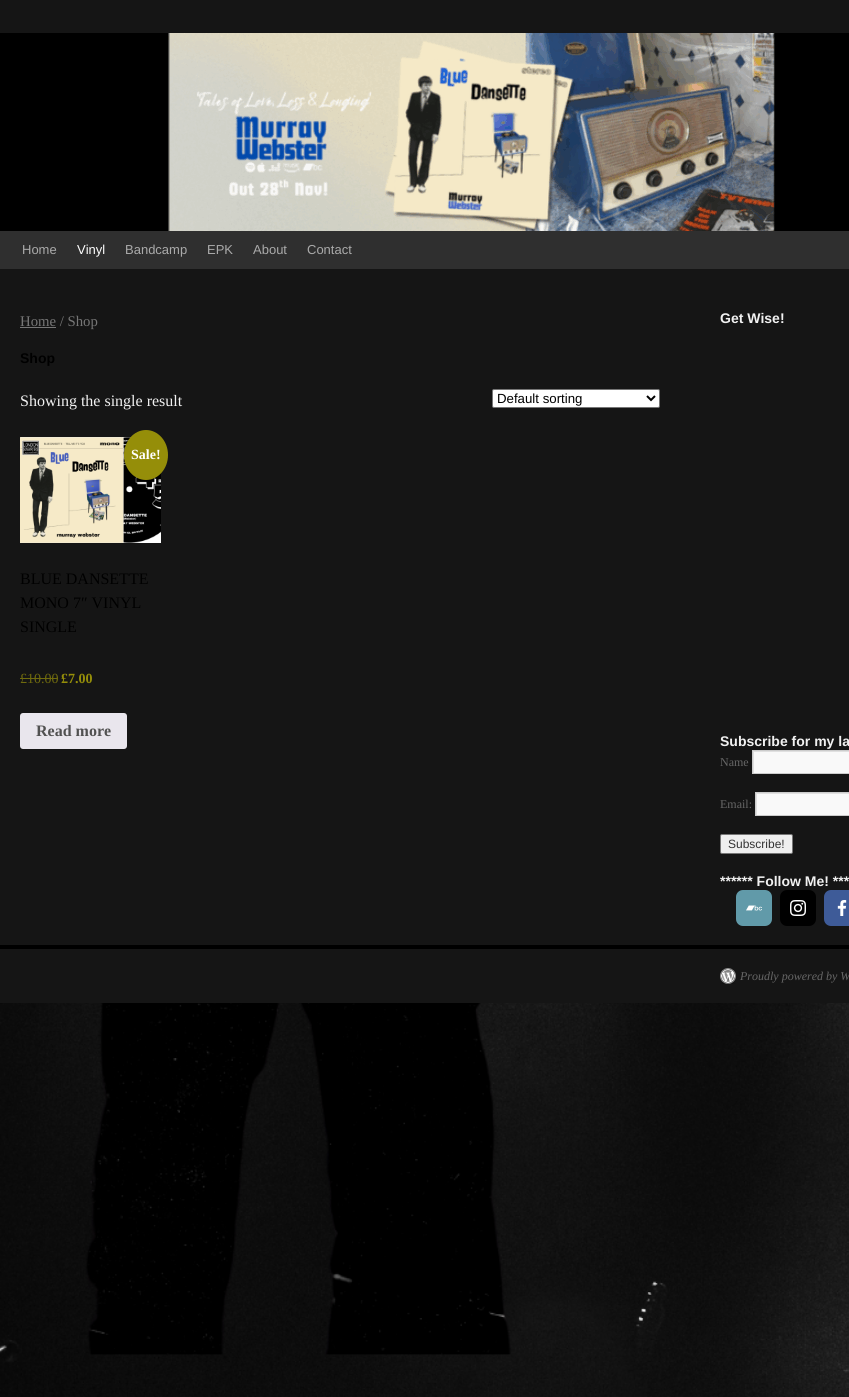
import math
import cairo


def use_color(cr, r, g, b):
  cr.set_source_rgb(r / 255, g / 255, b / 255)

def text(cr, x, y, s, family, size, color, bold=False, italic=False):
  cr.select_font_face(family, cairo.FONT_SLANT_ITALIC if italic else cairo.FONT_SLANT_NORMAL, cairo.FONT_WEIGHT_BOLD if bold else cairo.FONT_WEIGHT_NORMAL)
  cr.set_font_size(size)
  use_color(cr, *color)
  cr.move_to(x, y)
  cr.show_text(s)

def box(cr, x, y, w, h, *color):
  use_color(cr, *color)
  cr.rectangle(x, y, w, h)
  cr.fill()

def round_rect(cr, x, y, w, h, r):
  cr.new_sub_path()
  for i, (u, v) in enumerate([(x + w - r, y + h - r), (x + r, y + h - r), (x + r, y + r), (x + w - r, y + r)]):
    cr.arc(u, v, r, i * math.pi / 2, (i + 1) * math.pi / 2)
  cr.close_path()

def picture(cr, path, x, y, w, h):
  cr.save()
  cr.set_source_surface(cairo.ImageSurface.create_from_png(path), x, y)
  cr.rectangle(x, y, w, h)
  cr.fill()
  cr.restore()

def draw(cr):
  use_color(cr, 255, 255, 255)
  cr.paint()
  picture(cr, "img_01.png", 0, 1003, 849, 394)
  box(cr, 0, 0, 849, 1003, 21, 21, 21)
  picture(cr, "img_02.png", 0, 33, 849, 198)
  box(cr, 0, 231, 849, 38, 47, 47, 47)
  box(cr, 20, 327, 36, 1, 118, 118, 118)
  use_color(cr, 255, 255, 255)
  round_rect(cr, 492.5, 389.5, 167, 18, 1.5)
  cr.fill_preserve()
  use_color(cr, 118, 118, 118)
  cr.set_line_width(1)
  cr.stroke()
  cr.new_path()
  cr.move_to(647, 396)
  cr.line_to(651, 400)
  cr.line_to(655, 396)
  use_color(cr, 0, 0, 0)
  cr.set_line_width(2)
  cr.stroke()
  picture(cr, "img_03.png", 20, 437, 141, 106)
  use_color(cr, 149, 142, 9)
  cr.new_path()
  cr.move_to(146, 430)
  cr.curve_to(158, 430, 168, 441, 168, 455)
  cr.curve_to(168, 469, 158, 480, 146, 480)
  cr.curve_to(134, 480, 124, 469, 124, 455)
  cr.curve_to(124, 441, 134, 430, 146, 430)
  cr.close_path()
  cr.fill()
  box(cr, 20, 678, 38, 1, 111, 106, 13)
  use_color(cr, 233, 230, 237)
  round_rect(cr, 20, 713, 107, 36, 3)
  cr.fill()
  box(cr, 754, 752, 95, 21, 249, 249, 249)
  cr.save()
  cr.rectangle(753, 751, 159, 22)
  cr.clip()
  use_color(cr, 224, 224, 224)
  cr.set_fill_rule(cairo.FILL_RULE_EVEN_ODD)
  cr.new_path()
  cr.move_to(654, 652)
  cr.line_to(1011, 652)
  cr.line_to(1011, 872)
  cr.line_to(654, 872)
  cr.close_path()
  cr.move_to(754, 752)
  cr.line_to(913, 752)
  cr.line_to(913, 774)
  cr.line_to(754, 774)
  cr.close_path()
  cr.fill()
  cr.restore()
  cr.rectangle(752.5, 750.5, 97, 23)
  use_color(cr, 204, 204, 204)
  cr.set_line_width(1)
  cr.stroke()
  box(cr, 757, 794, 92, 21, 249, 249, 249)
  cr.save()
  cr.rectangle(756, 793, 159, 22)
  cr.clip()
  use_color(cr, 224, 224, 224)
  cr.set_fill_rule(cairo.FILL_RULE_EVEN_ODD)
  cr.new_path()
  cr.move_to(657, 694)
  cr.line_to(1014, 694)
  cr.line_to(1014, 914)
  cr.line_to(657, 914)
  cr.close_path()
  cr.move_to(757, 794)
  cr.line_to(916, 794)
  cr.line_to(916, 816)
  cr.line_to(757, 816)
  cr.close_path()
  cr.fill()
  cr.restore()
  cr.rectangle(755.5, 792.5, 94, 23)
  use_color(cr, 204, 204, 204)
  cr.stroke()
  use_color(cr, 239, 239, 239)
  round_rect(cr, 720.5, 834.5, 72, 19, 1.5)
  cr.fill_preserve()
  use_color(cr, 118, 118, 118)
  cr.stroke()
  use_color(cr, 97, 154, 169)
  round_rect(cr, 736, 890, 36, 36, 7)
  cr.fill()
  picture(cr, "img_04.png", 746, 905, 16, 6)
  use_color(cr, 0, 0, 0)
  round_rect(cr, 780, 890, 36, 36, 7)
  cr.fill()
  picture(cr, "img_05.png", 790, 900, 16, 16)
  use_color(cr, 62, 91, 152)
  round_rect(cr, 824, 890, 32, 36, 7)
  cr.fill()
  picture(cr, "img_06.png", 837, 900, 10, 16)
  box(cr, 0, 945, 849, 4, 0, 0, 0)
  picture(cr, "img_07.png", 720, 968, 16, 16)
  text(cr, 22, 254, "Home", "Liberation Sans", 13, (170, 170, 170))
  text(cr, 77, 254, "Vinyl", "Liberation Sans", 13, (255, 255, 255))
  text(cr, 125, 254, "Bandcamp", "Liberation Sans", 13, (170, 170, 170))
  text(cr, 207, 254, "EPK", "Liberation Sans", 13, (170, 170, 170))
  text(cr, 253, 254, "About", "Liberation Sans", 13, (170, 170, 170))
  text(cr, 307, 254, "Contact", "Liberation Sans", 13, (170, 170, 170))
  text(cr, 20, 326, "Home / Shop", "Liberation Serif", 14.75, (118, 118, 118))
  text(cr, 20, 363, "Shop", "Liberation Sans", 14, (0, 0, 0), bold=True)
  text(cr, 20, 406, "Showing the single result", "Liberation Serif", 16, (241, 241, 241))
  text(cr, 497, 403, "Default sorting", "Liberation Sans", 13.25, (0, 0, 0))
  text(cr, 131, 459, "Sale!", "Liberation Serif", 14, (255, 255, 255), bold=True)
  text(cr, 20, 584, "BLUE DANSETTE", "Liberation Serif", 16, (0, 0, 0))
  text(cr, 20, 608, "MONO 7″ VINYL", "Liberation Serif", 16, (0, 0, 0))
  text(cr, 20, 632, "SINGLE", "Liberation Serif", 16, (0, 0, 0))
  text(cr, 20, 683, "£10.00", "Liberation Serif", 14, (111, 106, 13))
  text(cr, 61, 683, "£7.00", "Liberation Serif", 14, (149, 142, 9), bold=True)
  text(cr, 36, 736, "Read more", "Liberation Serif", 16, (81, 81, 81), bold=True)
  text(cr, 720, 323, "Get Wise!", "Liberation Sans", 14, (241, 241, 241), bold=True)
  text(cr, 720, 746, "Subscribe for my la", "Liberation Sans", 14, (241, 241, 241), bold=True)
  text(cr, 720, 766, "Name", "Liberation Serif", 12, (102, 102, 102))
  text(cr, 720, 808, "Email:", "Liberation Serif", 12, (102, 102, 102))
  text(cr, 728, 848, "Subscribe!", "Liberation Sans", 12, (51, 51, 51))
  text(cr, 720, 886, "****** Follow Me! ***", "Liberation Sans", 14, (241, 241, 241), bold=True)
  text(cr, 740, 980, "Proudly powered by W", "Liberation Serif", 12, (102, 102, 102), italic=True)


surface = cairo.ImageSurface(cairo.FORMAT_RGB24, 849, 1397)
cr = cairo.Context(surface)
options = cairo.FontOptions()
options.set_hint_metrics(cairo.HINT_METRICS_OFF)
options.set_hint_style(cairo.HINT_STYLE_NONE)
cr.set_font_options(options)
cr.set_miter_limit(4)
draw(cr)
surface.write_to_png("out.png")
